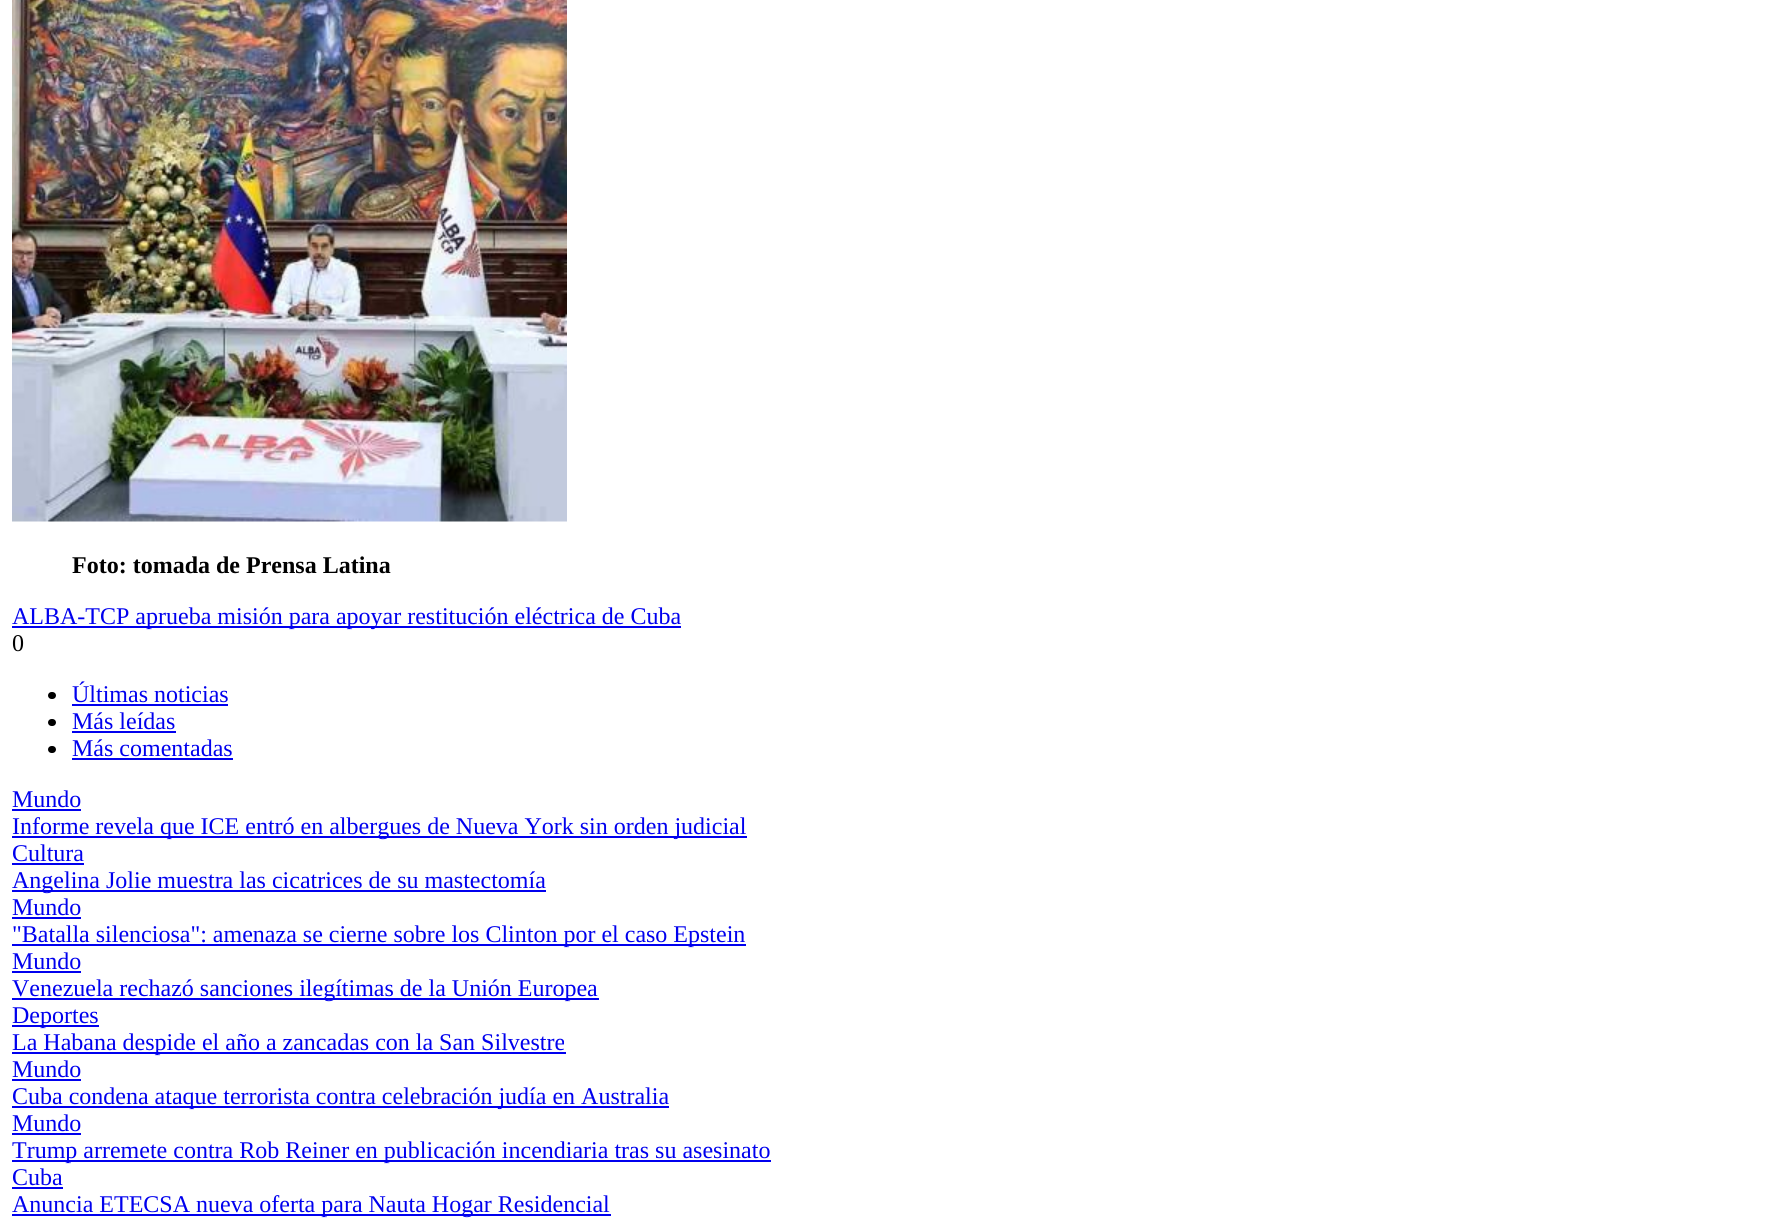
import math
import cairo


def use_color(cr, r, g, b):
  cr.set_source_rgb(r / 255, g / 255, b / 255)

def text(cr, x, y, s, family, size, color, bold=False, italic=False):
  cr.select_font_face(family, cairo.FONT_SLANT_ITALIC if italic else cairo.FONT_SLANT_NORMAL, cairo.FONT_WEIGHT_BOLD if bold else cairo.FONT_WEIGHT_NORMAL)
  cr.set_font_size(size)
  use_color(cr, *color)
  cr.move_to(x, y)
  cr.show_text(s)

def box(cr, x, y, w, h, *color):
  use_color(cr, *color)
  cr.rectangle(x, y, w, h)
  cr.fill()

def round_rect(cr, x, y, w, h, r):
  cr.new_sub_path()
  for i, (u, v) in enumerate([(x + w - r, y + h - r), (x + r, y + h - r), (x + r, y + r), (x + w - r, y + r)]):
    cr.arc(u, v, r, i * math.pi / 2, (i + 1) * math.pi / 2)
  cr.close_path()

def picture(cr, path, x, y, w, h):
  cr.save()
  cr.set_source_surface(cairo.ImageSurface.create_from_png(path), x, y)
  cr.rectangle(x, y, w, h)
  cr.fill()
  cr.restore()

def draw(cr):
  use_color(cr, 255, 255, 255)
  cr.paint()
  picture(cr, "img_01.png", 12, 0, 555, 522)
  box(cr, 12, 626, 669, 2, 0, 0, 238)
  use_color(cr, 0, 0, 0)
  round_rect(cr, 48, 692, 8, 7, 3.5)
  cr.fill()
  box(cr, 72, 704, 156, 2, 0, 0, 238)
  use_color(cr, 0, 0, 0)
  round_rect(cr, 48, 719, 8, 7, 3.5)
  cr.fill()
  box(cr, 72, 731, 104, 2, 0, 0, 238)
  use_color(cr, 0, 0, 0)
  round_rect(cr, 48, 746, 8, 7, 3.5)
  cr.fill()
  box(cr, 72, 758, 161, 2, 0, 0, 238)
  box(cr, 12, 809, 69, 2, 0, 0, 238)
  box(cr, 12, 836, 735, 2, 0, 0, 238)
  box(cr, 12, 863, 72, 2, 0, 0, 238)
  box(cr, 12, 890, 534, 2, 0, 0, 238)
  box(cr, 12, 917, 69, 2, 0, 0, 238)
  box(cr, 12, 944, 734, 2, 0, 0, 238)
  box(cr, 12, 971, 69, 2, 0, 0, 238)
  box(cr, 12, 998, 587, 2, 0, 0, 238)
  box(cr, 12, 1025, 87, 2, 0, 0, 238)
  box(cr, 12, 1052, 554, 2, 0, 0, 238)
  box(cr, 12, 1079, 69, 2, 0, 0, 238)
  box(cr, 12, 1106, 657, 2, 0, 0, 238)
  box(cr, 12, 1133, 69, 2, 0, 0, 238)
  box(cr, 12, 1160, 759, 2, 0, 0, 238)
  box(cr, 12, 1187, 51, 2, 0, 0, 238)
  box(cr, 12, 1214, 599, 2, 0, 0, 238)
  text(cr, 72, 573, "Foto: tomada de Prensa Latina", "Liberation Serif", 24, (0, 0, 0), bold=True)
  text(cr, 12, 624, "ALBA-TCP aprueba misión para apoyar restitución eléctrica de Cuba", "Liberation Serif", 24, (0, 0, 238))
  text(cr, 12, 651, "0", "Liberation Serif", 24, (0, 0, 0))
  text(cr, 72, 702, "Últimas noticias", "Liberation Serif", 24, (0, 0, 238))
  text(cr, 72, 729, "Más leídas", "Liberation Serif", 24, (0, 0, 238))
  text(cr, 72, 756, "Más comentadas", "Liberation Serif", 24, (0, 0, 238))
  text(cr, 12, 807, "Mundo", "Liberation Serif", 24, (0, 0, 238))
  text(cr, 12, 834, "Informe revela que ICE entró en albergues de Nueva York sin orden judicial", "Liberation Serif", 24, (0, 0, 238))
  text(cr, 12, 861, "Cultura", "Liberation Serif", 24, (0, 0, 238))
  text(cr, 12, 888, "Angelina Jolie muestra las cicatrices de su mastectomía", "Liberation Serif", 24, (0, 0, 238))
  text(cr, 12, 915, "Mundo", "Liberation Serif", 24, (0, 0, 238))
  text(cr, 12, 942, "\"Batalla silenciosa\": amenaza se cierne sobre los Clinton por el caso Epstein", "Liberation Serif", 24, (0, 0, 238))
  text(cr, 12, 969, "Mundo", "Liberation Serif", 24, (0, 0, 238))
  text(cr, 12, 996, "Venezuela rechazó sanciones ilegítimas de la Unión Europea", "Liberation Serif", 24, (0, 0, 238))
  text(cr, 12, 1023, "Deportes", "Liberation Serif", 24, (0, 0, 238))
  text(cr, 12, 1050, "La Habana despide el año a zancadas con la San Silvestre", "Liberation Serif", 24, (0, 0, 238))
  text(cr, 12, 1077, "Mundo", "Liberation Serif", 24, (0, 0, 238))
  text(cr, 12, 1104, "Cuba condena ataque terrorista contra celebración judía en Australia", "Liberation Serif", 24, (0, 0, 238))
  text(cr, 12, 1131, "Mundo", "Liberation Serif", 24, (0, 0, 238))
  text(cr, 12, 1158, "Trump arremete contra Rob Reiner en publicación incendiaria tras su asesinato", "Liberation Serif", 24, (0, 0, 238))
  text(cr, 12, 1185, "Cuba", "Liberation Serif", 24, (0, 0, 238))
  text(cr, 12, 1212, "Anuncia ETECSA nueva oferta para Nauta Hogar Residencial", "Liberation Serif", 24, (0, 0, 238))


surface = cairo.ImageSurface(cairo.FORMAT_RGB24, 1782, 1218)
cr = cairo.Context(surface)
options = cairo.FontOptions()
options.set_hint_metrics(cairo.HINT_METRICS_OFF)
options.set_hint_style(cairo.HINT_STYLE_NONE)
cr.set_font_options(options)
cr.set_miter_limit(4)
draw(cr)
surface.write_to_png("out.png")
